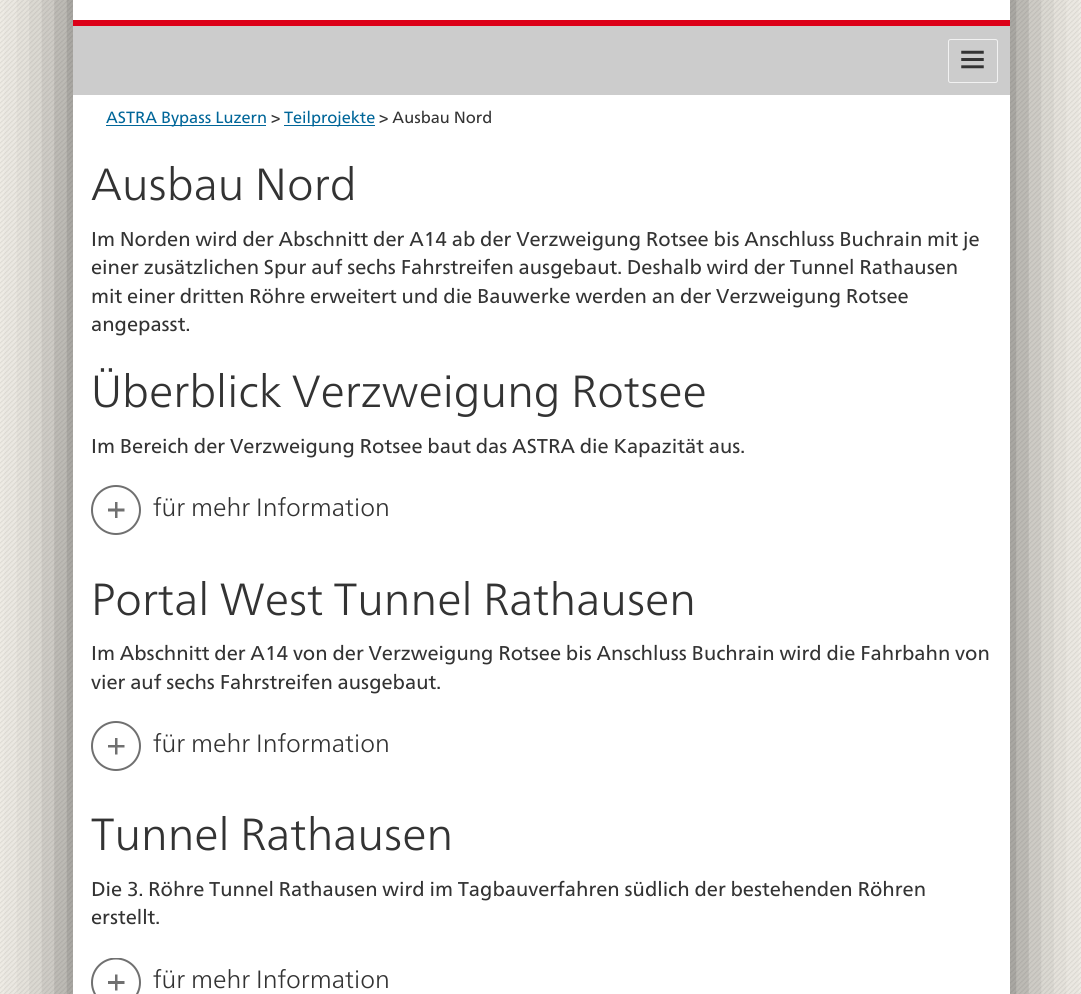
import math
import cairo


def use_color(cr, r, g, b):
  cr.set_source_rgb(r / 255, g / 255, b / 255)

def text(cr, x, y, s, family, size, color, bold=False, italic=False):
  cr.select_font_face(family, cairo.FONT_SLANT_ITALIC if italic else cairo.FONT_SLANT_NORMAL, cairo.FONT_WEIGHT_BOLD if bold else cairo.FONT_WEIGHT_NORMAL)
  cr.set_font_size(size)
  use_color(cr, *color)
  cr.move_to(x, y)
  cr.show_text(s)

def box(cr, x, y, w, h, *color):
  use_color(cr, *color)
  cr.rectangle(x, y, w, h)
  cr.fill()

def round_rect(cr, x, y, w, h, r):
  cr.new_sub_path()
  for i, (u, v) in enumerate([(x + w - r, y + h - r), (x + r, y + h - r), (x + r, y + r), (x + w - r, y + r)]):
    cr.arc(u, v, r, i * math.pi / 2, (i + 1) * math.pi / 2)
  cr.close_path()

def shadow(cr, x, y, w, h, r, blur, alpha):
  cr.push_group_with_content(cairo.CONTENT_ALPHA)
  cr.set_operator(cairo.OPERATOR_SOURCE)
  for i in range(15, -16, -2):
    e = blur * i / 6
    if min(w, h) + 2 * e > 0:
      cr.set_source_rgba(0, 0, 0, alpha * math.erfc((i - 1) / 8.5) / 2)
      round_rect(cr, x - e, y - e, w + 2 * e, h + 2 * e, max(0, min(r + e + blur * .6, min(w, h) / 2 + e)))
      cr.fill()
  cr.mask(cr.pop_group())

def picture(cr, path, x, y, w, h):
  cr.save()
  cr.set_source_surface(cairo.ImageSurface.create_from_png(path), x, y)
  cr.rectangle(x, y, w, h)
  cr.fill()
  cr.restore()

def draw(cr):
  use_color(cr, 255, 255, 255)
  cr.paint()
  picture(cr, "img_01.png", 0, 0, 1081, 994)
  use_color(cr, 0, 0, 0)
  shadow(cr, 73, -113, 937, 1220, 0, 37.5, 0.6)
  box(cr, 73, 0, 937, 994, 255, 255, 255)
  box(cr, 73, 26, 937, 69, 204, 204, 204)
  box(cr, 73, 20, 937, 6, 220, 0, 24)
  round_rect(cr, 948.5, 39.5, 49, 43, 2)
  use_color(cr, 242, 242, 242)
  cr.set_line_width(1)
  cr.stroke()
  picture(cr, "img_02.png", 961, 50, 23, 19)
  box(cr, 106, 125, 160, 1, 0, 102, 153)
  box(cr, 284, 125, 91, 1, 0, 102, 153)
  cr.arc(116, 510, 24, 0, 2 * math.pi)
  use_color(cr, 112, 112, 112)
  cr.set_line_width(2)
  cr.stroke()
  cr.set_fill_rule(cairo.FILL_RULE_EVEN_ODD)
  cr.new_path()
  cr.move_to(117.5, 502)
  cr.line_to(117.5, 508.5)
  cr.line_to(124.5, 508.5)
  cr.line_to(124.5, 511.5)
  cr.line_to(117.5, 511.5)
  cr.line_to(117.5, 518)
  cr.line_to(115, 518)
  cr.line_to(115, 511.5)
  cr.line_to(108, 511.5)
  cr.line_to(108, 508.5)
  cr.line_to(115, 508.5)
  cr.line_to(115, 502)
  cr.close_path()
  cr.fill()
  cr.arc(116, 746, 24, 0, 2 * math.pi)
  cr.stroke()
  cr.new_path()
  cr.move_to(117.5, 738)
  cr.line_to(117.5, 745)
  cr.line_to(124.5, 745)
  cr.line_to(124.5, 747.5)
  cr.line_to(117.5, 747.5)
  cr.line_to(117.5, 754.5)
  cr.line_to(115, 754.5)
  cr.line_to(115, 747.5)
  cr.line_to(108, 747.5)
  cr.line_to(108, 745)
  cr.line_to(115, 745)
  cr.line_to(115, 738)
  cr.close_path()
  cr.fill()
  cr.save()
  cr.set_fill_rule(cairo.FILL_RULE_WINDING)
  cr.rectangle(91, 958, 50, 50)
  cr.clip()
  cr.arc(116, 982.5, 24, 0, 2 * math.pi)
  cr.stroke()
  cr.restore()
  cr.new_path()
  cr.move_to(117.5, 974.5)
  cr.line_to(117.5, 981)
  cr.line_to(124.5, 981)
  cr.line_to(124.5, 984)
  cr.line_to(117.5, 984)
  cr.line_to(117.5, 990.5)
  cr.line_to(115, 990.5)
  cr.line_to(115, 984)
  cr.line_to(108, 984)
  cr.line_to(108, 981)
  cr.line_to(115, 981)
  cr.line_to(115, 974.5)
  cr.close_path()
  cr.fill()
  text(cr, 106, 123, "ASTRA Bypass Luzern", "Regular", 16.25, (0, 102, 153))
  text(cr, 271, 123, ">", "Regular", 16.25, (51, 51, 51))
  text(cr, 284, 123, "Teilprojekte", "Regular", 16.25, (0, 102, 153))
  text(cr, 379, 123, "> Ausbau Nord", "Regular", 16.25, (51, 51, 51))
  text(cr, 91, 200, "Ausbau Nord", "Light", 45, (51, 51, 51))
  text(cr, 91, 246, "Im Norden wird der Abschnitt der A14 ab der Verzweigung Rotsee bis Anschluss Buchrain mit je", "Regular", 20, (51, 51, 51))
  text(cr, 91, 274, "einer zusätzlichen Spur auf sechs Fahrstreifen ausgebaut. Deshalb wird der Tunnel Rathausen", "Regular", 20, (51, 51, 51))
  text(cr, 91, 303, "mit einer dritten Röhre erweitert und die Bauwerke werden an der Verzweigung Rotsee", "Regular", 20, (51, 51, 51))
  text(cr, 91, 331, "angepasst.", "Regular", 20, (51, 51, 51))
  text(cr, 91, 407, "Überblick Verzweigung Rotsee", "Light", 45, (51, 51, 51))
  text(cr, 91, 453, "Im Bereich der Verzweigung Rotsee baut das ASTRA die Kapazität aus.", "Regular", 20, (51, 51, 51))
  text(cr, 153, 516, "für mehr Information", "Light", 25, (51, 51, 51))
  text(cr, 91, 615, "Portal West Tunnel Rathausen", "Light", 45, (51, 51, 51))
  text(cr, 91, 660, "Im Abschnitt der A14 von der Verzweigung Rotsee bis Anschluss Buchrain wird die Fahrbahn von", "Regular", 20, (51, 51, 51))
  text(cr, 91, 689, "vier auf sechs Fahrstreifen ausgebaut.", "Regular", 20, (51, 51, 51))
  text(cr, 153, 752, "für mehr Information", "Light", 25, (51, 51, 51))
  text(cr, 91, 850, "Tunnel Rathausen", "Light", 45, (51, 51, 51))
  text(cr, 91, 896, "Die 3. Röhre Tunnel Rathausen wird im Tagbauverfahren südlich der bestehenden Röhren", "Regular", 20, (51, 51, 51))
  text(cr, 91, 924, "erstellt.", "Regular", 20, (51, 51, 51))
  text(cr, 153, 988, "für mehr Information", "Light", 25, (51, 51, 51))


surface = cairo.ImageSurface(cairo.FORMAT_RGB24, 1081, 994)
cr = cairo.Context(surface)
options = cairo.FontOptions()
options.set_hint_metrics(cairo.HINT_METRICS_OFF)
options.set_hint_style(cairo.HINT_STYLE_NONE)
cr.set_font_options(options)
cr.set_miter_limit(4)
draw(cr)
surface.write_to_png("out.png")
